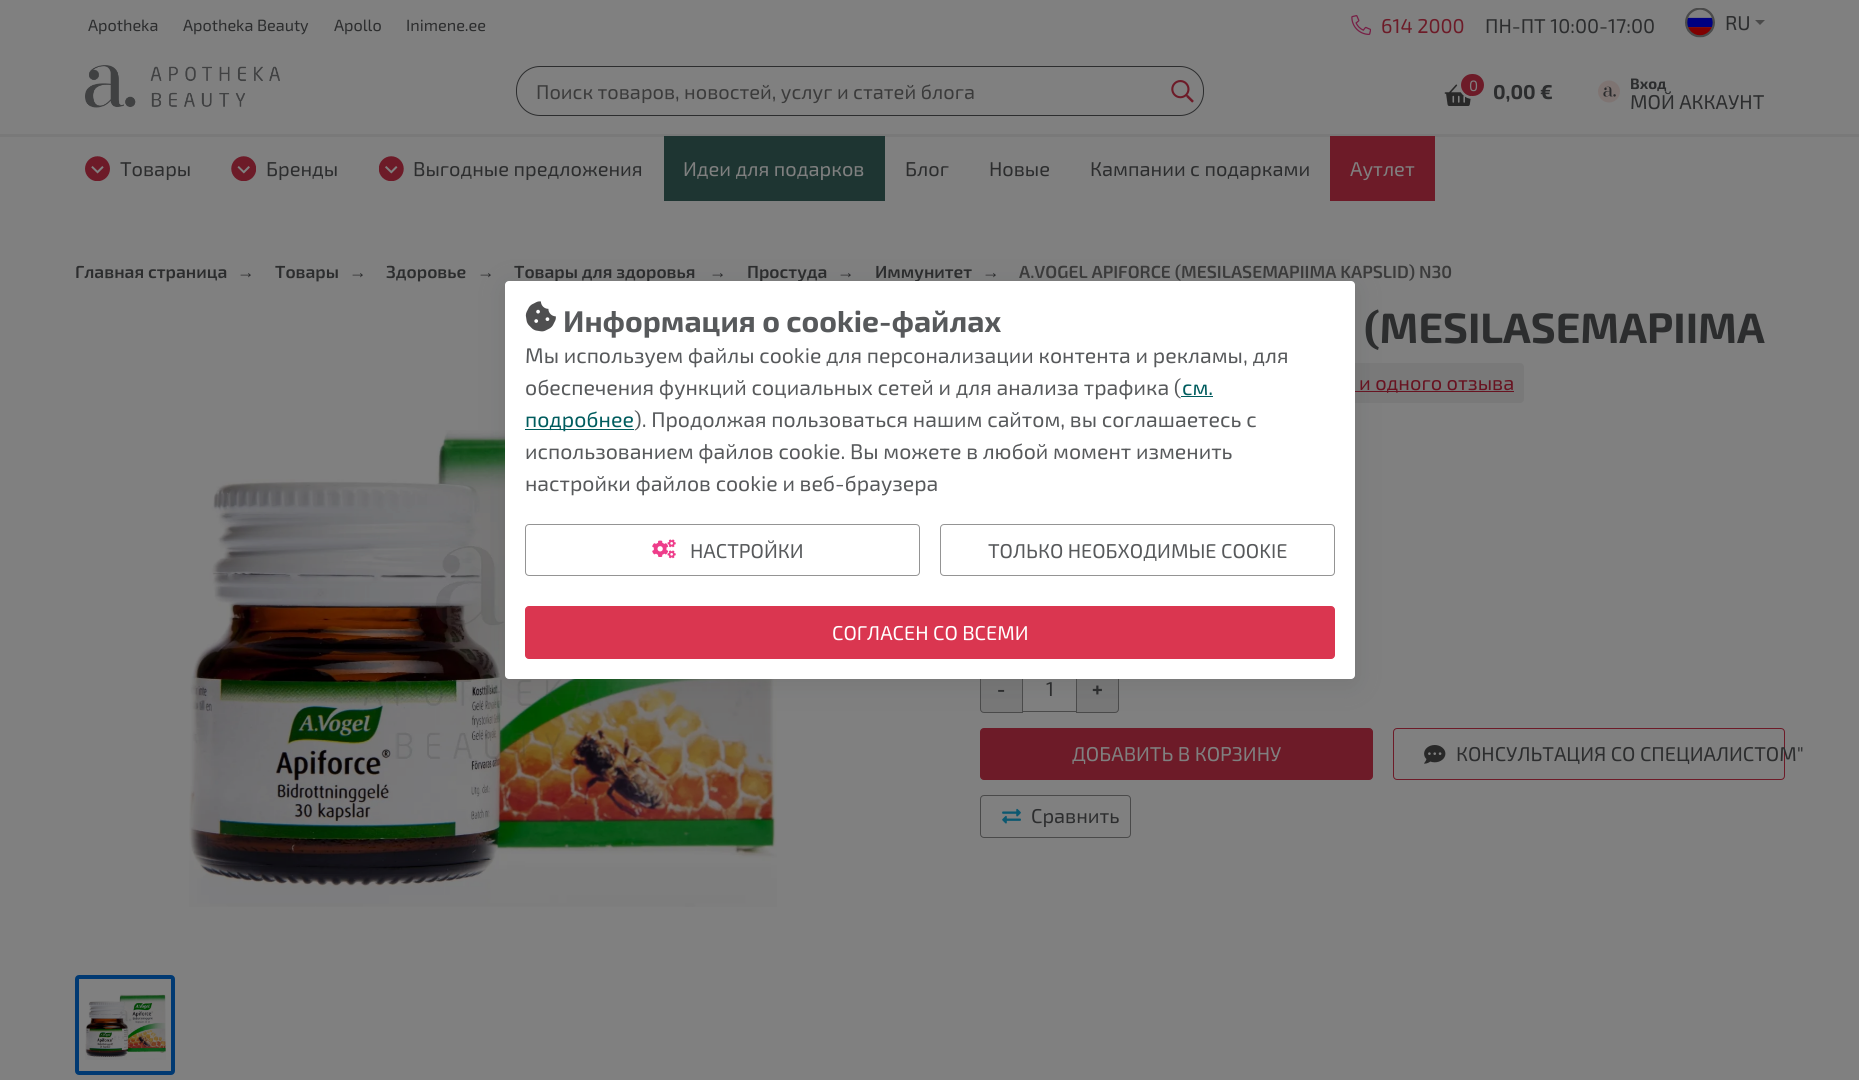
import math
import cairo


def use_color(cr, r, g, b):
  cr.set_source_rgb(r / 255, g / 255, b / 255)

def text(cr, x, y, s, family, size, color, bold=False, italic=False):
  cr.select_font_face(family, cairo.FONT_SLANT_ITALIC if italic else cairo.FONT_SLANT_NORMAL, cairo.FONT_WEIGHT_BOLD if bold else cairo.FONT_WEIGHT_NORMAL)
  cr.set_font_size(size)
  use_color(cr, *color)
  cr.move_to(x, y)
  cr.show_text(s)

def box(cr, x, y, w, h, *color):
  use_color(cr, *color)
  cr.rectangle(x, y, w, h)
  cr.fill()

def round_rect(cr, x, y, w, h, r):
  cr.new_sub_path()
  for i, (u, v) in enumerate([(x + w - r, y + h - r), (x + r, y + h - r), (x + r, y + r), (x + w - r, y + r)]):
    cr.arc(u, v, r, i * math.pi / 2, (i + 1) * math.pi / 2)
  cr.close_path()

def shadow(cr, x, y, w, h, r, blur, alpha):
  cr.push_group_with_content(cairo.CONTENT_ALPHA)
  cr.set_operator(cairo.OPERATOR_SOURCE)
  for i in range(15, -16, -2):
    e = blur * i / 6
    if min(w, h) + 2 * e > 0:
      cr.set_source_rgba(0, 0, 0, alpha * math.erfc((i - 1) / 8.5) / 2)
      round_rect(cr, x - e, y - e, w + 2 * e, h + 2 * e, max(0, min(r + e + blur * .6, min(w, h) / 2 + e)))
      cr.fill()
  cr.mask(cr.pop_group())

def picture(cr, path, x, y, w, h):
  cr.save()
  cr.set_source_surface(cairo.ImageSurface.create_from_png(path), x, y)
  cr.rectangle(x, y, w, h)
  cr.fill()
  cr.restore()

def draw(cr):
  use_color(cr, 128, 128, 128)
  cr.paint()
  picture(cr, "img_01.png", 1351, 15, 20, 20)
  picture(cr, "img_02.png", 1685, 8, 30, 30)
  use_color(cr, 74, 74, 74)
  cr.new_path()
  cr.move_to(1755, 20)
  cr.line_to(1765, 20)
  cr.line_to(1760, 25)
  cr.close_path()
  cr.fill()
  picture(cr, "img_03.png", 85, 65, 195, 43)
  picture(cr, "img_04.png", 1171, 80, 23, 23)
  round_rect(cr, 516.5, 66.5, 687, 49, 23.5)
  use_color(cr, 44, 45, 46)
  cr.set_line_width(1)
  cr.stroke()
  picture(cr, "img_05.png", 1444, 84, 28, 22)
  round_rect(cr, 1460.5, 72.5, 24, 25, 12)
  use_color(cr, 128, 128, 128)
  cr.set_line_width(3)
  cr.stroke()
  use_color(cr, 109, 27, 40)
  round_rect(cr, 1461, 74, 23, 22, 11)
  cr.fill()
  picture(cr, "img_06.png", 1598, 80, 22, 23)
  box(cr, 0, 134, 1859, 3, 121, 121, 121)
  picture(cr, "img_07.png", 85, 156, 25, 25)
  picture(cr, "img_08.png", 231, 156, 25, 25)
  picture(cr, "img_09.png", 379, 156, 25, 25)
  box(cr, 664, 136, 221, 65, 30, 53, 50)
  box(cr, 1330, 136, 105, 65, 109, 27, 40)
  picture(cr, "img_10.png", 189, 430, 588, 477)
  round_rect(cr, 77, 977, 96, 96, 2)
  use_color(cr, 0, 57, 114)
  cr.set_line_width(4)
  cr.stroke()
  picture(cr, "img_11.png", 85, 994, 81, 66)
  use_color(cr, 121, 121, 121)
  round_rect(cr, 1266, 363, 258, 40, 4)
  cr.fill()
  box(cr, 1355, 391, 159, 1, 104, 19, 33)
  box(cr, 1021, 711, 57, 1, 74, 74, 74)
  use_color(cr, 119, 119, 119)
  cr.new_path()
  cr.move_to(984, 666.5)
  cr.line_to(1022.5, 666.5)
  cr.line_to(1022.5, 712.5)
  cr.line_to(984, 712.5)
  cr.curve_to(982, 712.5, 980.5, 711, 980.5, 709)
  cr.line_to(980.5, 670)
  cr.curve_to(980.5, 668, 982, 666.5, 984, 666.5)
  cr.close_path()
  cr.fill_preserve()
  use_color(cr, 74, 74, 74)
  cr.set_line_width(1)
  cr.stroke()
  use_color(cr, 119, 119, 119)
  cr.new_path()
  cr.move_to(1076.5, 666.5)
  cr.line_to(1115, 666.5)
  cr.curve_to(1117, 666.5, 1118.5, 668, 1118.5, 670)
  cr.line_to(1118.5, 709)
  cr.curve_to(1118.5, 711, 1117, 712.5, 1115, 712.5)
  cr.line_to(1076.5, 712.5)
  cr.close_path()
  cr.fill_preserve()
  use_color(cr, 74, 74, 74)
  cr.stroke()
  use_color(cr, 109, 27, 40)
  round_rect(cr, 980.5, 728.5, 392, 51, 3.5)
  cr.fill_preserve()
  cr.stroke()
  round_rect(cr, 1393.5, 728.5, 391, 51, 3.5)
  cr.stroke()
  picture(cr, "img_12.png", 1424, 745, 22, 19)
  round_rect(cr, 980.5, 795.5, 150, 42, 3.5)
  use_color(cr, 74, 74, 74)
  cr.stroke()
  picture(cr, "img_13.png", 1002, 808, 19, 16)
  use_color(cr, 87, 89, 91)
  shadow(cr, 505, 286, 850, 398, 4, 12.5, 0.25)
  text(cr, 88, 31, "Apotheka", "Exo 2", 16.25, (44, 45, 46))
  text(cr, 183, 31, "Apotheka Beauty", "Exo 2", 16.25, (44, 45, 46))
  text(cr, 334, 31, "Apollo", "Exo 2", 16.25, (44, 45, 46))
  text(cr, 406, 31, "Inimene.ee", "Exo 2", 16.25, (44, 45, 46))
  text(cr, 1381, 33, "614 2000", "Exo 2", 20, (109, 27, 40))
  text(cr, 1485, 33, "ПН-ПТ 10:00-17:00", "Exo 2", 20, (44, 45, 46))
  text(cr, 1725, 30, "RU", "Exo 2", 20, (44, 45, 46))
  text(cr, 536, 99, "Поиск товаров, новостей, услуг и статей блога", "Exo 2", 20, (59, 59, 59))
  text(cr, 1469, 91, "0", "Exo 2", 15, (128, 128, 128))
  text(cr, 1493, 99, "0,00 €", "Exo 2", 20, (44, 45, 46), bold=True)
  text(cr, 1630, 89, "Вход", "Exo 2", 15, (44, 45, 46), bold=True)
  text(cr, 1630, 109, "МОЙ АККАУНТ", "Exo 2", 20, (44, 45, 46))
  text(cr, 120, 176, "Товары", "Exo 2", 20, (44, 45, 46))
  text(cr, 266, 176, "Бренды", "Exo 2", 20, (44, 45, 46))
  text(cr, 413, 176, "Выгодные предложения", "Exo 2", 20, (44, 45, 46))
  text(cr, 683, 176, "Идеи для подарков", "Exo 2", 20, (128, 128, 128))
  text(cr, 905, 176, "Блог", "Exo 2", 20, (44, 45, 46))
  text(cr, 989, 176, "Новые", "Exo 2", 20, (44, 45, 46))
  text(cr, 1090, 176, "Кампании с подарками", "Exo 2", 20, (44, 45, 46))
  text(cr, 1350, 176, "Аутлет", "Exo 2", 20, (128, 128, 128))
  text(cr, 75, 278, "Главная страница", "Exo 2 SemiBold", 17.5, (44, 45, 46))
  text(cr, 237, 278, "→", "Liberation Sans", 17.5, (44, 45, 46), bold=True)
  text(cr, 275, 278, "Товары", "Exo 2 SemiBold", 17.5, (44, 45, 46))
  text(cr, 349, 278, "→", "Liberation Sans", 17.5, (44, 45, 46), bold=True)
  text(cr, 386, 278, "Здоровье", "Exo 2 SemiBold", 17.5, (44, 45, 46))
  text(cr, 477, 278, "→", "Liberation Sans", 17.5, (44, 45, 46), bold=True)
  text(cr, 514, 278, "Товары для здоровья", "Exo 2 SemiBold", 17.5, (44, 45, 46))
  text(cr, 709, 278, "→", "Liberation Sans", 17.5, (44, 45, 46), bold=True)
  text(cr, 747, 278, "Простуда", "Exo 2 SemiBold", 17.5, (44, 45, 46))
  text(cr, 837, 278, "→", "Liberation Sans", 17.5, (44, 45, 46), bold=True)
  text(cr, 875, 278, "Иммунитет", "Exo 2 SemiBold", 17.5, (44, 45, 46))
  text(cr, 982, 278, "→", "Liberation Sans", 17.5, (44, 45, 46), bold=True)
  text(cr, 1019, 278, "A.VOGEL APIFORCE (MESILASEMAPIIMA KAPSLID) N30", "Exo 2 SemiBold", 17.5, (59, 59, 59))
  text(cr, 1364, 343, "(MESILASEMAPIIMA", "Exo 2", 42.5, (44, 45, 46), bold=True)
  text(cr, 1359, 390, "и одного отзыва", "Exo 2", 20, (104, 19, 33))
  text(cr, 997, 696, "-", "Exo 2", 20, (44, 45, 46), bold=True)
  text(cr, 1046, 696, "1", "Exo 2", 20, (44, 45, 46))
  text(cr, 1092, 696, "+", "Exo 2", 20, (44, 45, 46), bold=True)
  text(cr, 1072, 761, "ДОБАВИТЬ В КОРЗИНУ", "Exo 2", 20, (128, 128, 128))
  text(cr, 1456, 761, "КОНСУЛЬТАЦИЯ СО СПЕЦИАЛИСТОМ\"", "Exo 2", 20, (44, 45, 46))
  text(cr, 1031, 823, "Сравнить", "Exo 2", 20, (44, 45, 46))
  use_color(cr, 255, 255, 255)
  round_rect(cr, 505, 281, 850, 398, 4)
  cr.fill()
  picture(cr, "img_14.png", 525, 301, 31, 31)
  text(cr, 563, 332, "Информация о cookie-файлах", "Exo 2", 30, (87, 89, 91), bold=True)
  text(cr, 525, 363, "Мы используем файлы cookie для персонализации контента и рекламы, для", "Exo 2", 21.25, (87, 89, 91))
  text(cr, 525, 395, "обеспечения функций социальных сетей и для анализа трафика (", "Exo 2", 21.25, (87, 89, 91))
  text(cr, 1182, 395, "см.", "Exo 2", 21.25, (0, 92, 94))
  box(cr, 1181, 396, 32, 1, 0, 92, 94)
  box(cr, 525, 429, 109, 1, 0, 92, 94)
  text(cr, 525, 427, "подробнее", "Exo 2", 21.25, (0, 92, 94))
  text(cr, 634, 427, "). Продолжая пользоваться нашим сайтом, вы соглашаетесь с", "Exo 2", 21.25, (87, 89, 91))
  text(cr, 525, 459, "использованием файлов cookie. Вы можете в любой момент изменить", "Exo 2", 21.25, (87, 89, 91))
  text(cr, 525, 491, "настройки файлов cookie и веб-браузера", "Exo 2", 21.25, (87, 89, 91))
  round_rect(cr, 525.5, 524.5, 394, 51, 3.5)
  use_color(cr, 148, 148, 148)
  cr.stroke()
  picture(cr, "img_15.png", 652, 539, 24, 20)
  text(cr, 690, 558, "НАСТРОЙКИ", "Exo 2", 20, (87, 89, 91))
  round_rect(cr, 940.5, 524.5, 394, 51, 3.5)
  use_color(cr, 148, 148, 148)
  cr.stroke()
  text(cr, 988, 558, "ТОЛЬКО НЕОБХОДИМЫЕ COOKIE", "Exo 2", 20, (87, 89, 91))
  use_color(cr, 218, 54, 80)
  round_rect(cr, 525.5, 606.5, 809, 52, 3.5)
  cr.fill_preserve()
  cr.stroke()
  text(cr, 832, 640, "СОГЛАСЕН СО ВСЕМИ", "Exo 2", 20, (255, 255, 255))


surface = cairo.ImageSurface(cairo.FORMAT_RGB24, 1859, 1080)
cr = cairo.Context(surface)
options = cairo.FontOptions()
options.set_hint_metrics(cairo.HINT_METRICS_OFF)
options.set_hint_style(cairo.HINT_STYLE_NONE)
cr.set_font_options(options)
cr.set_miter_limit(4)
draw(cr)
surface.write_to_png("out.png")
